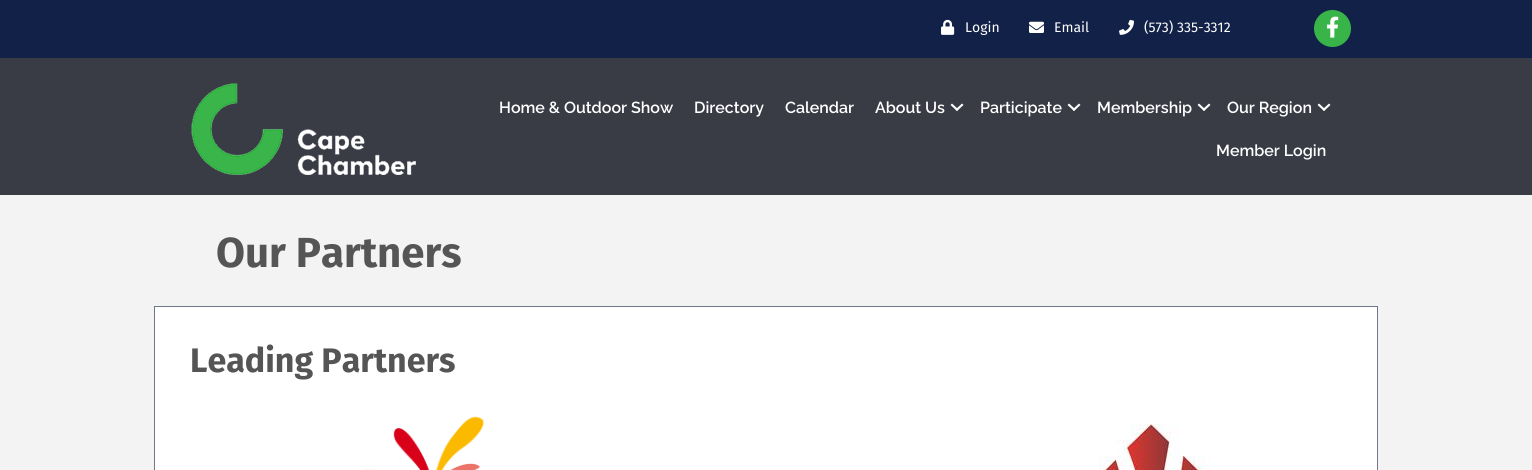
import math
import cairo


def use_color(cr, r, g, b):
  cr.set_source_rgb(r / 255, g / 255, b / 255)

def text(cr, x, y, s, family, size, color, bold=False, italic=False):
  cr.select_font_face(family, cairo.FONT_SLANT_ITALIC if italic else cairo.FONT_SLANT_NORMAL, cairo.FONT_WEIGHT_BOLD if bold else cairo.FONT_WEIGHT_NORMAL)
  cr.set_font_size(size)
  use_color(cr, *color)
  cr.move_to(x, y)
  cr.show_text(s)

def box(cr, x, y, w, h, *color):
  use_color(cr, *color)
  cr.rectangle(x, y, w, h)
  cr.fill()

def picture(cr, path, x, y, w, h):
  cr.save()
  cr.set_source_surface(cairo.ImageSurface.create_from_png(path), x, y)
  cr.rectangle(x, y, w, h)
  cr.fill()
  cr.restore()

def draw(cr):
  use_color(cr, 17, 33, 71)
  cr.paint()
  picture(cr, "img_01.png", 941, 19, 14, 16)
  picture(cr, "img_02.png", 1029, 21, 15, 12)
  picture(cr, "img_03.png", 1119, 19, 15, 16)
  use_color(cr, 56, 180, 73)
  cr.arc(1332.5, 28.5, 18.5, 0, 2 * math.pi)
  cr.fill()
  picture(cr, "img_04.png", 1326, 16, 13, 22)
  box(cr, 0, 58, 1532, 137, 57, 59, 69)
  picture(cr, "img_05.png", 191, 83, 225, 92)
  use_color(cr, 255, 255, 255)
  cr.new_path()
  cr.move_to(962, 103.5)
  cr.line_to(963.5, 105)
  cr.line_to(957, 111)
  cr.line_to(955.5, 109.5)
  cr.close_path()
  cr.fill()
  cr.new_path()
  cr.move_to(952, 103.5)
  cr.line_to(958.5, 109.5)
  cr.line_to(957, 111)
  cr.line_to(950.5, 105)
  cr.close_path()
  cr.fill()
  cr.new_path()
  cr.move_to(1079, 103.5)
  cr.line_to(1080.5, 105)
  cr.line_to(1074, 111)
  cr.line_to(1072.5, 109.5)
  cr.close_path()
  cr.fill()
  cr.new_path()
  cr.move_to(1069, 103.5)
  cr.line_to(1075.5, 109.5)
  cr.line_to(1074, 111)
  cr.line_to(1067.5, 105)
  cr.close_path()
  cr.fill()
  cr.new_path()
  cr.move_to(1209, 103.5)
  cr.line_to(1210.5, 105)
  cr.line_to(1204, 111)
  cr.line_to(1202.5, 109.5)
  cr.close_path()
  cr.fill()
  cr.new_path()
  cr.move_to(1199, 103.5)
  cr.line_to(1205.5, 109.5)
  cr.line_to(1204, 111)
  cr.line_to(1197.5, 105)
  cr.close_path()
  cr.fill()
  cr.new_path()
  cr.move_to(1329, 103.5)
  cr.line_to(1330.5, 105)
  cr.line_to(1324, 111)
  cr.line_to(1322.5, 109.5)
  cr.close_path()
  cr.fill()
  cr.new_path()
  cr.move_to(1319, 103.5)
  cr.line_to(1325.5, 109.5)
  cr.line_to(1324, 111)
  cr.line_to(1317.5, 105)
  cr.close_path()
  cr.fill()
  box(cr, 0, 195, 1532, 275, 243, 243, 243)
  use_color(cr, 255, 255, 255)
  cr.rectangle(154.5, 306.5, 1223, 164)
  cr.fill_preserve()
  use_color(cr, 110, 120, 137)
  cr.set_line_width(1)
  cr.stroke()
  picture(cr, "img_06.png", 363, 416, 121, 54)
  picture(cr, "img_07.png", 1098, 424, 113, 46)
  text(cr, 965, 32, "Login", "Fira Sans", 14, (255, 255, 255))
  text(cr, 1054, 32, "Email", "Fira Sans", 14, (255, 255, 255))
  text(cr, 1144, 32, "(573) 335-3312", "Fira Sans", 14, (255, 255, 255))
  text(cr, 499, 113, "Home & Outdoor Show", "Raleway SemiBold", 16, (255, 255, 255))
  text(cr, 694, 113, "Directory", "Raleway SemiBold", 16, (255, 255, 255))
  text(cr, 785, 113, "Calendar", "Raleway SemiBold", 16, (255, 255, 255))
  text(cr, 875, 113, "About Us", "Raleway SemiBold", 16, (255, 255, 255))
  text(cr, 980, 113, "Participate", "Raleway SemiBold", 16, (255, 255, 255))
  text(cr, 1097, 113, "Membership", "Raleway SemiBold", 16, (255, 255, 255))
  text(cr, 1227, 113, "Our Region", "Raleway SemiBold", 16, (255, 255, 255))
  text(cr, 1216, 156, "Member Login", "Raleway SemiBold", 16, (255, 255, 255))
  text(cr, 216, 267, "Our Partners", "Fira Sans", 42, (85, 85, 85), bold=True)
  text(cr, 190, 372, "Leading Partners", "Fira Sans", 34, (85, 85, 85), bold=True)


surface = cairo.ImageSurface(cairo.FORMAT_RGB24, 1532, 470)
cr = cairo.Context(surface)
options = cairo.FontOptions()
options.set_hint_metrics(cairo.HINT_METRICS_OFF)
options.set_hint_style(cairo.HINT_STYLE_NONE)
cr.set_font_options(options)
cr.set_miter_limit(4)
draw(cr)
surface.write_to_png("out.png")
